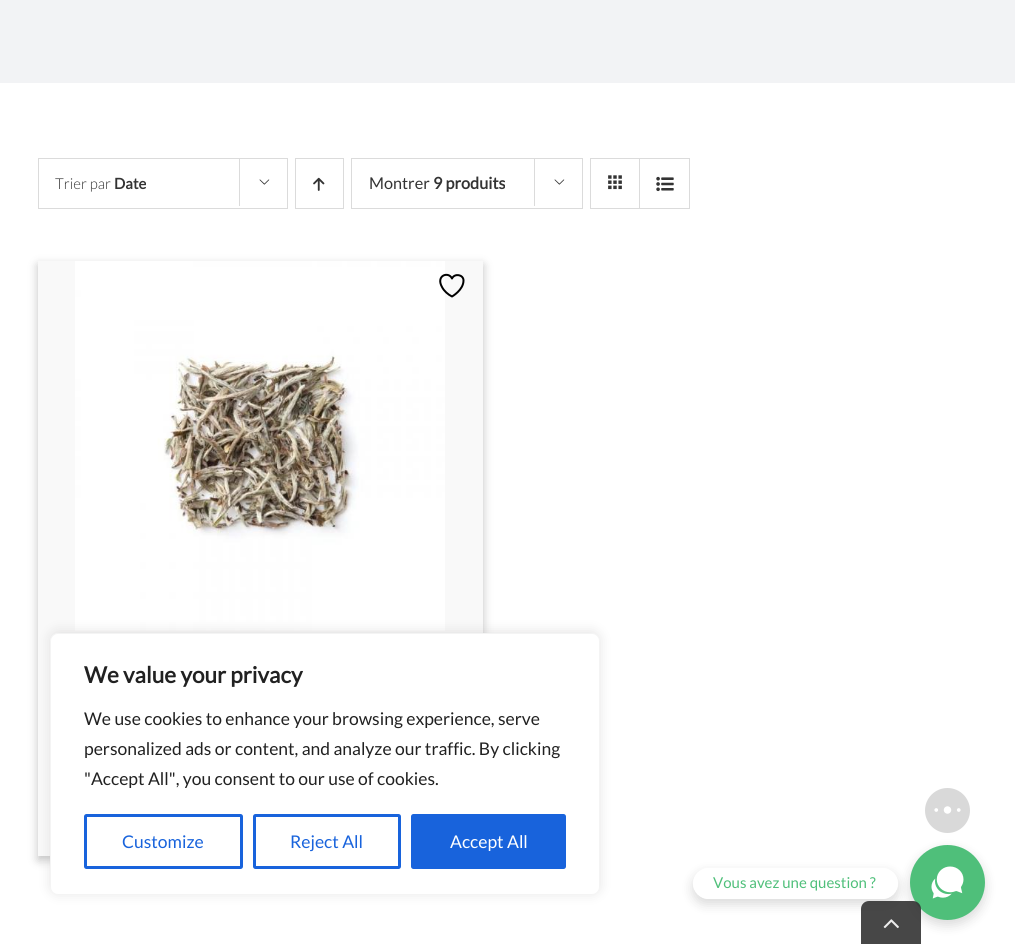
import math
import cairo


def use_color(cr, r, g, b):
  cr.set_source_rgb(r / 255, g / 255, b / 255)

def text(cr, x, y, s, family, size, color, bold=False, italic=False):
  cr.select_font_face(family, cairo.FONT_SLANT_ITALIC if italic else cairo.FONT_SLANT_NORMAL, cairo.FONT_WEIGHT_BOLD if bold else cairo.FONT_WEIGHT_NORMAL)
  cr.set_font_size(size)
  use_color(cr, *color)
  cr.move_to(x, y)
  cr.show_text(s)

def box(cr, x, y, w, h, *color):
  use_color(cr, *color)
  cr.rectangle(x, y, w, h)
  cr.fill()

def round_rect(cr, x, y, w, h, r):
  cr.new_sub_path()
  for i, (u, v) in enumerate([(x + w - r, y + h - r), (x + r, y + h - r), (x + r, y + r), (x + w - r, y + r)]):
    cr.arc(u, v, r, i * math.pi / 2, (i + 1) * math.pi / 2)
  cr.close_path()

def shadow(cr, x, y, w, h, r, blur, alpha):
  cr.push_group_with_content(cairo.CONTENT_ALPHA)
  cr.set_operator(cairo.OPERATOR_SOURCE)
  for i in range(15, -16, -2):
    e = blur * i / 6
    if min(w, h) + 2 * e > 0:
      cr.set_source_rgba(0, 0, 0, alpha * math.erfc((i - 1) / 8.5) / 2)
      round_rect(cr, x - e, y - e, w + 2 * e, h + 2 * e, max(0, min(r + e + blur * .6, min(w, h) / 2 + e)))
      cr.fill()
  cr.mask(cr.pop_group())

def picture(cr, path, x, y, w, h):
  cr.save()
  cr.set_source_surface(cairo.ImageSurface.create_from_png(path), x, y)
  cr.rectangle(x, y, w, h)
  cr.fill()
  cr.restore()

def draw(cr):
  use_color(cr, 255, 255, 255)
  cr.paint()
  box(cr, 0, 0, 1015, 83, 242, 243, 245)
  cr.rectangle(38.5, 158.5, 249, 50)
  use_color(cr, 219, 219, 219)
  cr.set_line_width(1)
  cr.stroke()
  box(cr, 239, 158, 1, 48, 219, 219, 219)
  picture(cr, "img_01.png", 259, 179, 11, 6)
  cr.rectangle(295.5, 158.5, 48, 50)
  cr.stroke()
  picture(cr, "img_02.png", 313, 177, 12, 14)
  cr.rectangle(351.5, 158.5, 231, 50)
  cr.stroke()
  box(cr, 534, 158, 1, 48, 219, 219, 219)
  picture(cr, "img_01.png", 554, 179, 11, 6)
  cr.rectangle(590.5, 158.5, 99, 50)
  cr.stroke()
  box(cr, 639, 159, 1, 49, 219, 219, 219)
  picture(cr, "img_03.png", 608, 175, 14, 15)
  picture(cr, "img_04.png", 656, 176, 18, 16)
  use_color(cr, 0, 0, 0)
  shadow(cr, 38, 265, 445, 595, 0, 5, 0.24)
  box(cr, 38, 261, 445, 595, 249, 249, 249)
  picture(cr, "img_05.png", 75, 261, 370, 370)
  cr.new_path()
  cr.move_to(463.5, 280.5)
  cr.curve_to(463.5, 274.5, 454.5, 273, 452, 278.5)
  cr.curve_to(448.5, 271, 435.5, 275.5, 442, 287)
  cr.curve_to(444, 291, 448, 294.5, 452, 296.5)
  cr.curve_to(452, 296.5, 463.5, 290, 463.5, 280.5)
  cr.close_path()
  use_color(cr, 0, 0, 0)
  cr.set_line_width(2)
  cr.set_line_cap(cairo.LINE_CAP_ROUND)
  cr.set_line_join(cairo.LINE_JOIN_ROUND)
  cr.stroke()
  use_color(cr, 172, 171, 171)
  shadow(cr, 50, 631, 550, 263, 8, 6, 0.3)
  use_color(cr, 255, 255, 255)
  round_rect(cr, 50.5, 633.5, 549, 261, 7.5)
  cr.fill_preserve()
  use_color(cr, 244, 244, 244)
  cr.set_line_width(1)
  cr.set_line_cap(cairo.LINE_CAP_BUTT)
  cr.set_line_join(cairo.LINE_JOIN_MITER)
  cr.stroke()
  round_rect(cr, 85.5, 815.5, 156, 52, 1)
  use_color(cr, 24, 99, 220)
  cr.set_line_width(3)
  cr.stroke()
  round_rect(cr, 254.5, 815.5, 145, 52, 1)
  cr.stroke()
  round_rect(cr, 412.5, 815.5, 152, 52, 1)
  cr.fill_preserve()
  cr.stroke()
  use_color(cr, 0, 0, 0)
  shadow(cr, 910, 850, 75, 75, 37.5, 6, 0.15)
  use_color(cr, 217, 217, 217)
  cr.arc(947.5, 810.5, 22.5, 0, 2 * math.pi)
  cr.fill()
  picture(cr, "img_06.png", 934, 806, 27, 8)
  use_color(cr, 79, 191, 122)
  cr.arc(947.5, 882.5, 37.5, 0, 2 * math.pi)
  cr.fill()
  cr.save()
  cr.set_fill_rule(cairo.FILL_RULE_EVEN_ODD)
  cr.new_path()
  cr.move_to(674, 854)
  cr.line_to(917, 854)
  cr.line_to(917, 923)
  cr.line_to(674, 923)
  cr.close_path()
  cr.move_to(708.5, 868)
  cr.line_to(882.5, 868)
  cr.curve_to(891, 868, 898, 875, 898, 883.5)
  cr.curve_to(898, 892, 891, 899, 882.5, 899)
  cr.line_to(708.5, 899)
  cr.curve_to(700, 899, 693, 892, 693, 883.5)
  cr.curve_to(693, 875, 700, 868, 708.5, 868)
  cr.close_path()
  cr.clip()
  use_color(cr, 0, 0, 0)
  shadow(cr, 693, 873, 205, 31, 15.5, 6, 0.15)
  cr.restore()
  cr.set_source_rgba(1, 1, 1, 0.3)
  round_rect(cr, 693, 868, 205, 31, 15.5)
  cr.fill()
  picture(cr, "img_07.png", 931, 866, 33, 33)
  cr.set_source_rgba(0.2, 0.2, 0.2, 0.9)
  cr.new_path()
  cr.move_to(869, 901)
  cr.line_to(913, 901)
  cr.curve_to(917.5, 901, 921, 904.5, 921, 909)
  cr.line_to(921, 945)
  cr.line_to(861, 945)
  cr.line_to(861, 909)
  cr.curve_to(861, 904.5, 864.5, 901, 869, 901)
  cr.close_path()
  cr.fill()
  picture(cr, "img_08.png", 883, 919, 16, 10)
  text(cr, 55, 189, "Trier par", "Lato Light", 15, (51, 51, 51))
  text(cr, 114, 189, "Date", "Lato", 15, (51, 51, 51), bold=True)
  text(cr, 369, 189, "Montrer", "Lato", 16.25, (51, 51, 51))
  text(cr, 433, 189, "9 produits", "Lato", 16.25, (51, 51, 51), bold=True)
  text(cr, 84, 683, "We value your privacy", "Lato", 22.5, (33, 33, 33), bold=True)
  text(cr, 84, 725, "We use cookies to enhance your browsing experience, serve", "Lato", 17.5, (33, 33, 33))
  text(cr, 84, 755, "personalized ads or content, and analyze our traffic. By clicking", "Lato", 17.5, (33, 33, 33))
  text(cr, 84, 785, "\"Accept All\", you consent to our use of cookies.", "Lato", 17.5, (33, 33, 33))
  text(cr, 122, 848, "Customize", "Lato", 17.5, (24, 99, 220))
  text(cr, 290, 848, "Reject All", "Lato", 17.5, (24, 99, 220))
  text(cr, 450, 848, "Accept All", "Lato", 17.5, (255, 255, 255))
  text(cr, 713, 888, "Vous avez une question ?", "Lato", 15, (79, 191, 122))


surface = cairo.ImageSurface(cairo.FORMAT_RGB24, 1015, 944)
cr = cairo.Context(surface)
options = cairo.FontOptions()
options.set_hint_metrics(cairo.HINT_METRICS_OFF)
options.set_hint_style(cairo.HINT_STYLE_NONE)
cr.set_font_options(options)
cr.set_miter_limit(4)
draw(cr)
surface.write_to_png("out.png")
